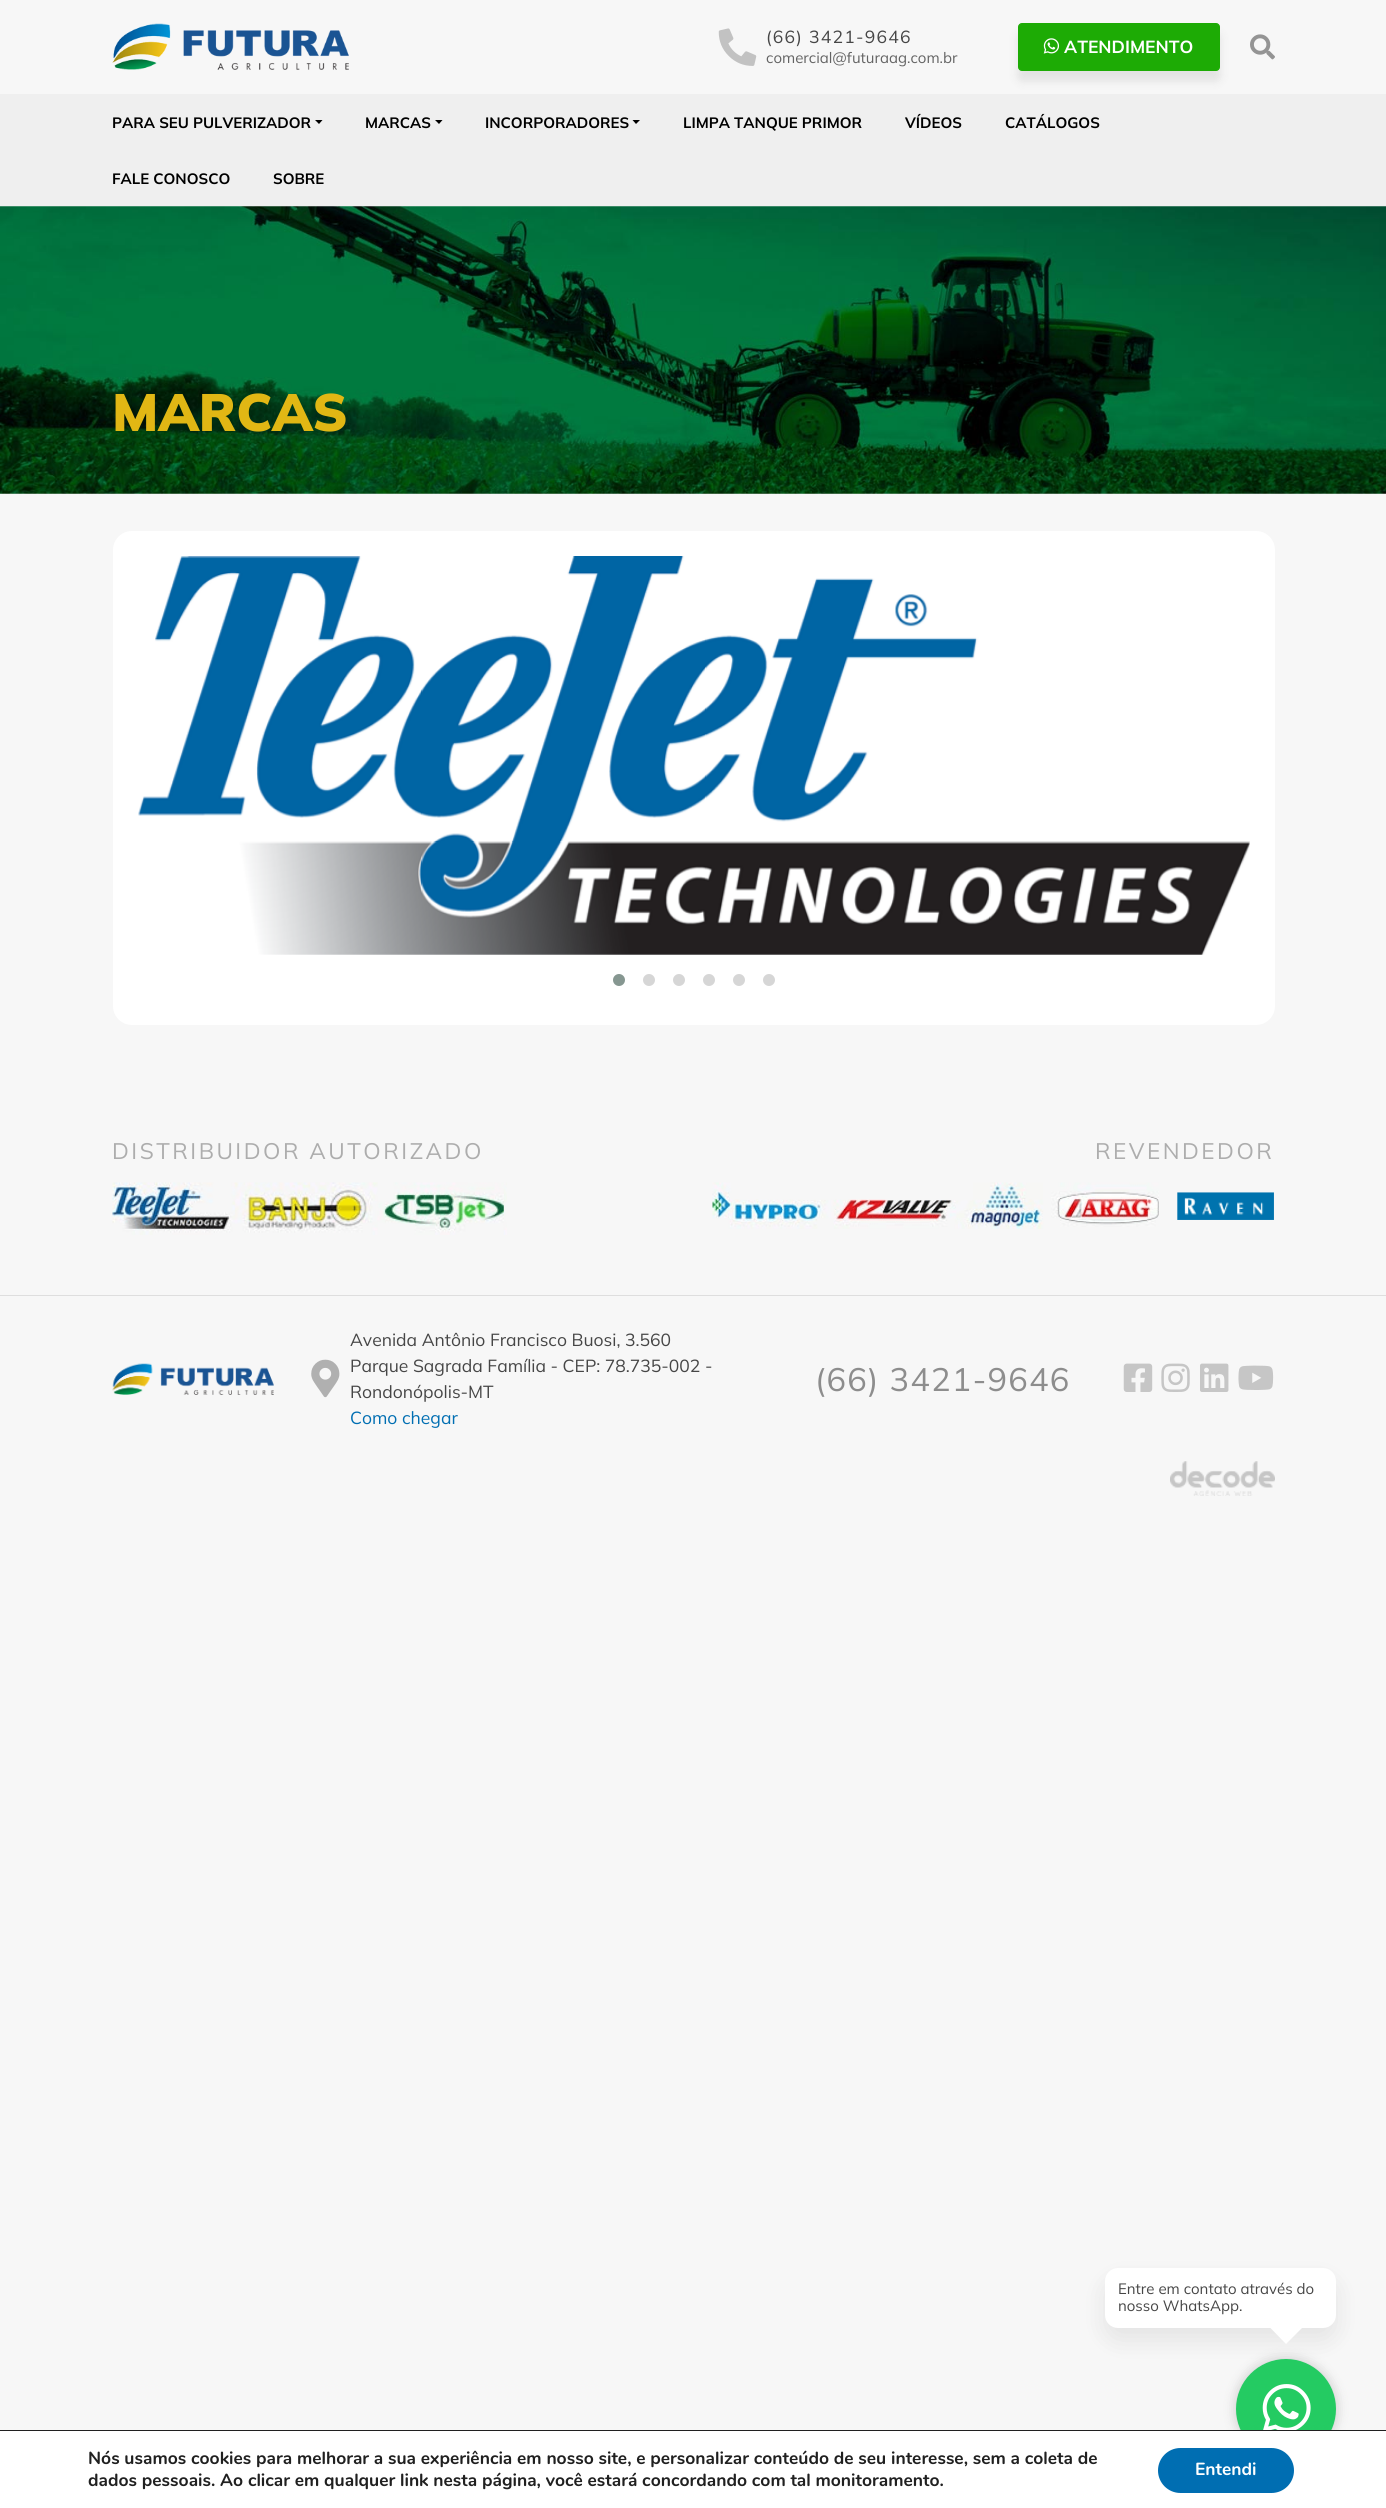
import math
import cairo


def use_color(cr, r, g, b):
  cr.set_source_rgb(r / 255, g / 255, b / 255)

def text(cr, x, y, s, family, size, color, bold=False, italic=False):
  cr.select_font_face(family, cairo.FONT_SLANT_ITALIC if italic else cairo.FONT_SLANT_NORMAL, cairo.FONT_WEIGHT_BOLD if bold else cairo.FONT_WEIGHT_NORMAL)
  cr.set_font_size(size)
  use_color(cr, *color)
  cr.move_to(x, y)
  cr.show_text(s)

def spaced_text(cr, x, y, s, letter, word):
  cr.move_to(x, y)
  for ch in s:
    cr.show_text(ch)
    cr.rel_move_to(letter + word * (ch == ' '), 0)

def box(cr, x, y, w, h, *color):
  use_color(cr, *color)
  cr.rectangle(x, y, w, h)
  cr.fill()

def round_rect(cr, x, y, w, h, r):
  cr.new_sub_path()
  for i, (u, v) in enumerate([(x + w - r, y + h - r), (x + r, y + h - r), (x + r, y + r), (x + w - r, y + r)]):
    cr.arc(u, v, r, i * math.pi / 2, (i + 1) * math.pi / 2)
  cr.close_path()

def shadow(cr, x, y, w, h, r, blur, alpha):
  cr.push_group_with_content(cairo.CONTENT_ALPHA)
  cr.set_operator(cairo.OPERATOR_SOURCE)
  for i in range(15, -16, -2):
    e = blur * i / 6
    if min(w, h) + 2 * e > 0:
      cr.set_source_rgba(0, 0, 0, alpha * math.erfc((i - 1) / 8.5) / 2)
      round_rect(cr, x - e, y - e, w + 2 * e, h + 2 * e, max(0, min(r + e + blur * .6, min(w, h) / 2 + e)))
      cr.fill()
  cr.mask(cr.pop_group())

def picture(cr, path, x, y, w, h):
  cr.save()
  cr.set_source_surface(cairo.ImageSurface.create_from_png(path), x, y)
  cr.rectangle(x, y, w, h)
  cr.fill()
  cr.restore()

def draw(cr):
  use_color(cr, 247, 247, 247)
  cr.paint()
  picture(cr, "img_01.png", 112, 23, 237, 47)
  picture(cr, "img_02.png", 718, 28, 39, 38)
  box(cr, 0, 94, 1386, 112, 239, 239, 239)
  use_color(cr, 0, 0, 0)
  shadow(cr, 1018, 33, 202, 48, 4, 5, 0.09)
  use_color(cr, 29, 171, 5)
  round_rect(cr, 1018.5, 23.5, 201, 47, 3.5)
  cr.fill_preserve()
  cr.set_line_width(1)
  cr.stroke()
  picture(cr, "img_03.png", 1043, 38, 17, 16)
  picture(cr, "img_04.png", 1250, 34, 25, 26)
  use_color(cr, 0, 0, 0)
  cr.new_path()
  cr.move_to(315, 120)
  cr.line_to(322.5, 120)
  cr.line_to(319, 124)
  cr.close_path()
  cr.fill()
  cr.new_path()
  cr.move_to(435, 120)
  cr.line_to(442.5, 120)
  cr.line_to(439, 124)
  cr.close_path()
  cr.fill()
  cr.new_path()
  cr.move_to(632.5, 120)
  cr.line_to(640, 120)
  cr.line_to(636, 124)
  cr.close_path()
  cr.fill()
  picture(cr, "img_05.png", 0, 206, 1386, 288)
  use_color(cr, 255, 255, 255)
  round_rect(cr, 113, 531, 1162, 494, 19)
  cr.fill()
  picture(cr, "img_06.png", 138, 556, 1112, 399)
  cr.set_source_rgba(1, 1, 1, 0.16)
  cr.rectangle(1249, 842, 1, 4)
  cr.fill()
  use_color(cr, 134, 151, 145)
  cr.arc(619, 980, 6, 0, 2 * math.pi)
  cr.fill()
  use_color(cr, 214, 214, 214)
  cr.arc(649, 980, 6, 0, 2 * math.pi)
  cr.fill()
  cr.arc(679, 980, 6, 0, 2 * math.pi)
  cr.fill()
  cr.arc(709, 980, 6, 0, 2 * math.pi)
  cr.fill()
  cr.arc(739, 980, 6, 0, 2 * math.pi)
  cr.fill()
  cr.arc(769, 980, 6, 0, 2 * math.pi)
  cr.fill()
  picture(cr, "img_07.png", 112, 1182, 395, 53)
  picture(cr, "img_08.png", 712, 1182, 562, 47)
  box(cr, 0, 1295, 1386, 1, 222, 222, 222)
  picture(cr, "img_09.png", 112, 1363, 162, 32)
  picture(cr, "img_10.png", 311, 1359, 29, 39)
  picture(cr, "img_11.png", 1123, 1363, 30, 29)
  picture(cr, "img_12.png", 1161, 1363, 29, 29)
  picture(cr, "img_13.png", 1200, 1363, 29, 29)
  picture(cr, "img_14.png", 1238, 1365, 36, 25)
  picture(cr, "img_15.png", 1170, 1461, 105, 35)
  use_color(cr, 0, 0, 0)
  shadow(cr, 1105, 2280, 231, 60, 13, 12.5, 0.08)
  use_color(cr, 255, 255, 255)
  round_rect(cr, 1105, 2268, 231, 60, 13)
  cr.fill()
  cr.new_path()
  cr.move_to(1286, 2308.5)
  cr.line_to(1304, 2326)
  cr.line_to(1286, 2344)
  cr.line_to(1268.5, 2326)
  cr.close_path()
  cr.fill()
  use_color(cr, 0, 0, 0)
  shadow(cr, 1236, 2359, 100, 100, 50, 6, 0.2)
  use_color(cr, 36, 203, 98)
  cr.arc(1286, 2409, 50, 0, 2 * math.pi)
  cr.fill()
  box(cr, 0, 2431, 1386, 77, 255, 255, 255)
  box(cr, 0, 2430, 1386, 1, 32, 32, 32)
  use_color(cr, 0, 110, 178)
  round_rect(cr, 1158, 2448, 136, 45, 22.5)
  cr.fill()
  picture(cr, "img_16.png", 1262, 2384, 49, 46)
  cr.select_font_face("Mulish")
  cr.set_font_size(17.5)
  use_color(cr, 70, 70, 70)
  spaced_text(cr, 766, 43, "(66) 3421-9646", 1.25, 0)
  text(cr, 766, 63, "comercial@futuraag.com.br", "Mulish", 15, (99, 99, 99))
  text(cr, 1064, 53, "ATENDIMENTO", "Mulish", 17.5, (255, 255, 255), bold=True)
  text(cr, 112, 128, "PARA SEU PULVERIZADOR", "Mulish", 15, (0, 0, 0), bold=True)
  text(cr, 365, 128, "MARCAS", "Mulish", 15, (0, 0, 0), bold=True)
  text(cr, 485, 128, "INCORPORADORES", "Mulish", 15, (0, 0, 0), bold=True)
  text(cr, 683, 128, "LIMPA TANQUE PRIMOR", "Mulish", 15, (0, 0, 0), bold=True)
  text(cr, 905, 128, "VÍDEOS", "Mulish", 15, (0, 0, 0), bold=True)
  text(cr, 1005, 128, "CATÁLOGOS", "Mulish", 15, (0, 0, 0), bold=True)
  text(cr, 112, 184, "FALE CONOSCO", "Mulish", 15, (0, 0, 0), bold=True)
  text(cr, 273, 184, "SOBRE", "Mulish", 15, (0, 0, 0), bold=True)
  text(cr, 112, 431, "MARCAS", "Mulish Black", 52.5, (225, 183, 20))
  cr.select_font_face("Mulish")
  cr.set_font_size(22.5)
  use_color(cr, 173, 173, 173)
  spaced_text(cr, 112, 1159, "DISTRIBUIDOR AUTORIZADO", 2.5, 0)
  spaced_text(cr, 1095, 1159, "REVENDEDOR", 2.5, 0)
  text(cr, 350, 1346, "Avenida Antônio Francisco Buosi, 3.560", "Mulish", 17.5, (70, 70, 70))
  text(cr, 350, 1372, "Parque Sagrada Família - CEP: 78.735-002 -", "Mulish", 17.5, (70, 70, 70))
  text(cr, 350, 1398, "Rondonópolis-MT", "Mulish", 17.5, (70, 70, 70))
  text(cr, 350, 1424, "Como chegar", "Mulish", 17.5, (0, 110, 178))
  cr.set_font_size(32.5)
  use_color(cr, 141, 141, 141)
  spaced_text(cr, 815, 1391, "(66) 3421-9646", 1.25, 0)
  text(cr, 1118, 2294, "Entre em contato através do", "Mulish", 15, (70, 70, 70))
  text(cr, 1118, 2311, "nosso WhatsApp.", "Mulish", 15, (70, 70, 70))
  text(cr, 88, 2464, "Nós usamos cookies para melhorar a sua experiência em nosso site, e personalizar conteúdo de seu interesse, sem a coleta de", "Nunito", 17.5, (32, 32, 32), bold=True)
  text(cr, 88, 2486, "dados pessoais. Ao clicar em qualquer link nesta página, você estará concordando com tal monitoramento.", "Nunito", 17.5, (32, 32, 32), bold=True)
  text(cr, 1195, 2475, "Entendi", "Nunito", 17.5, (255, 255, 255), bold=True)


surface = cairo.ImageSurface(cairo.FORMAT_RGB24, 1386, 2508)
cr = cairo.Context(surface)
options = cairo.FontOptions()
options.set_hint_metrics(cairo.HINT_METRICS_OFF)
options.set_hint_style(cairo.HINT_STYLE_NONE)
cr.set_font_options(options)
cr.set_miter_limit(4)
draw(cr)
surface.write_to_png("out.png")
